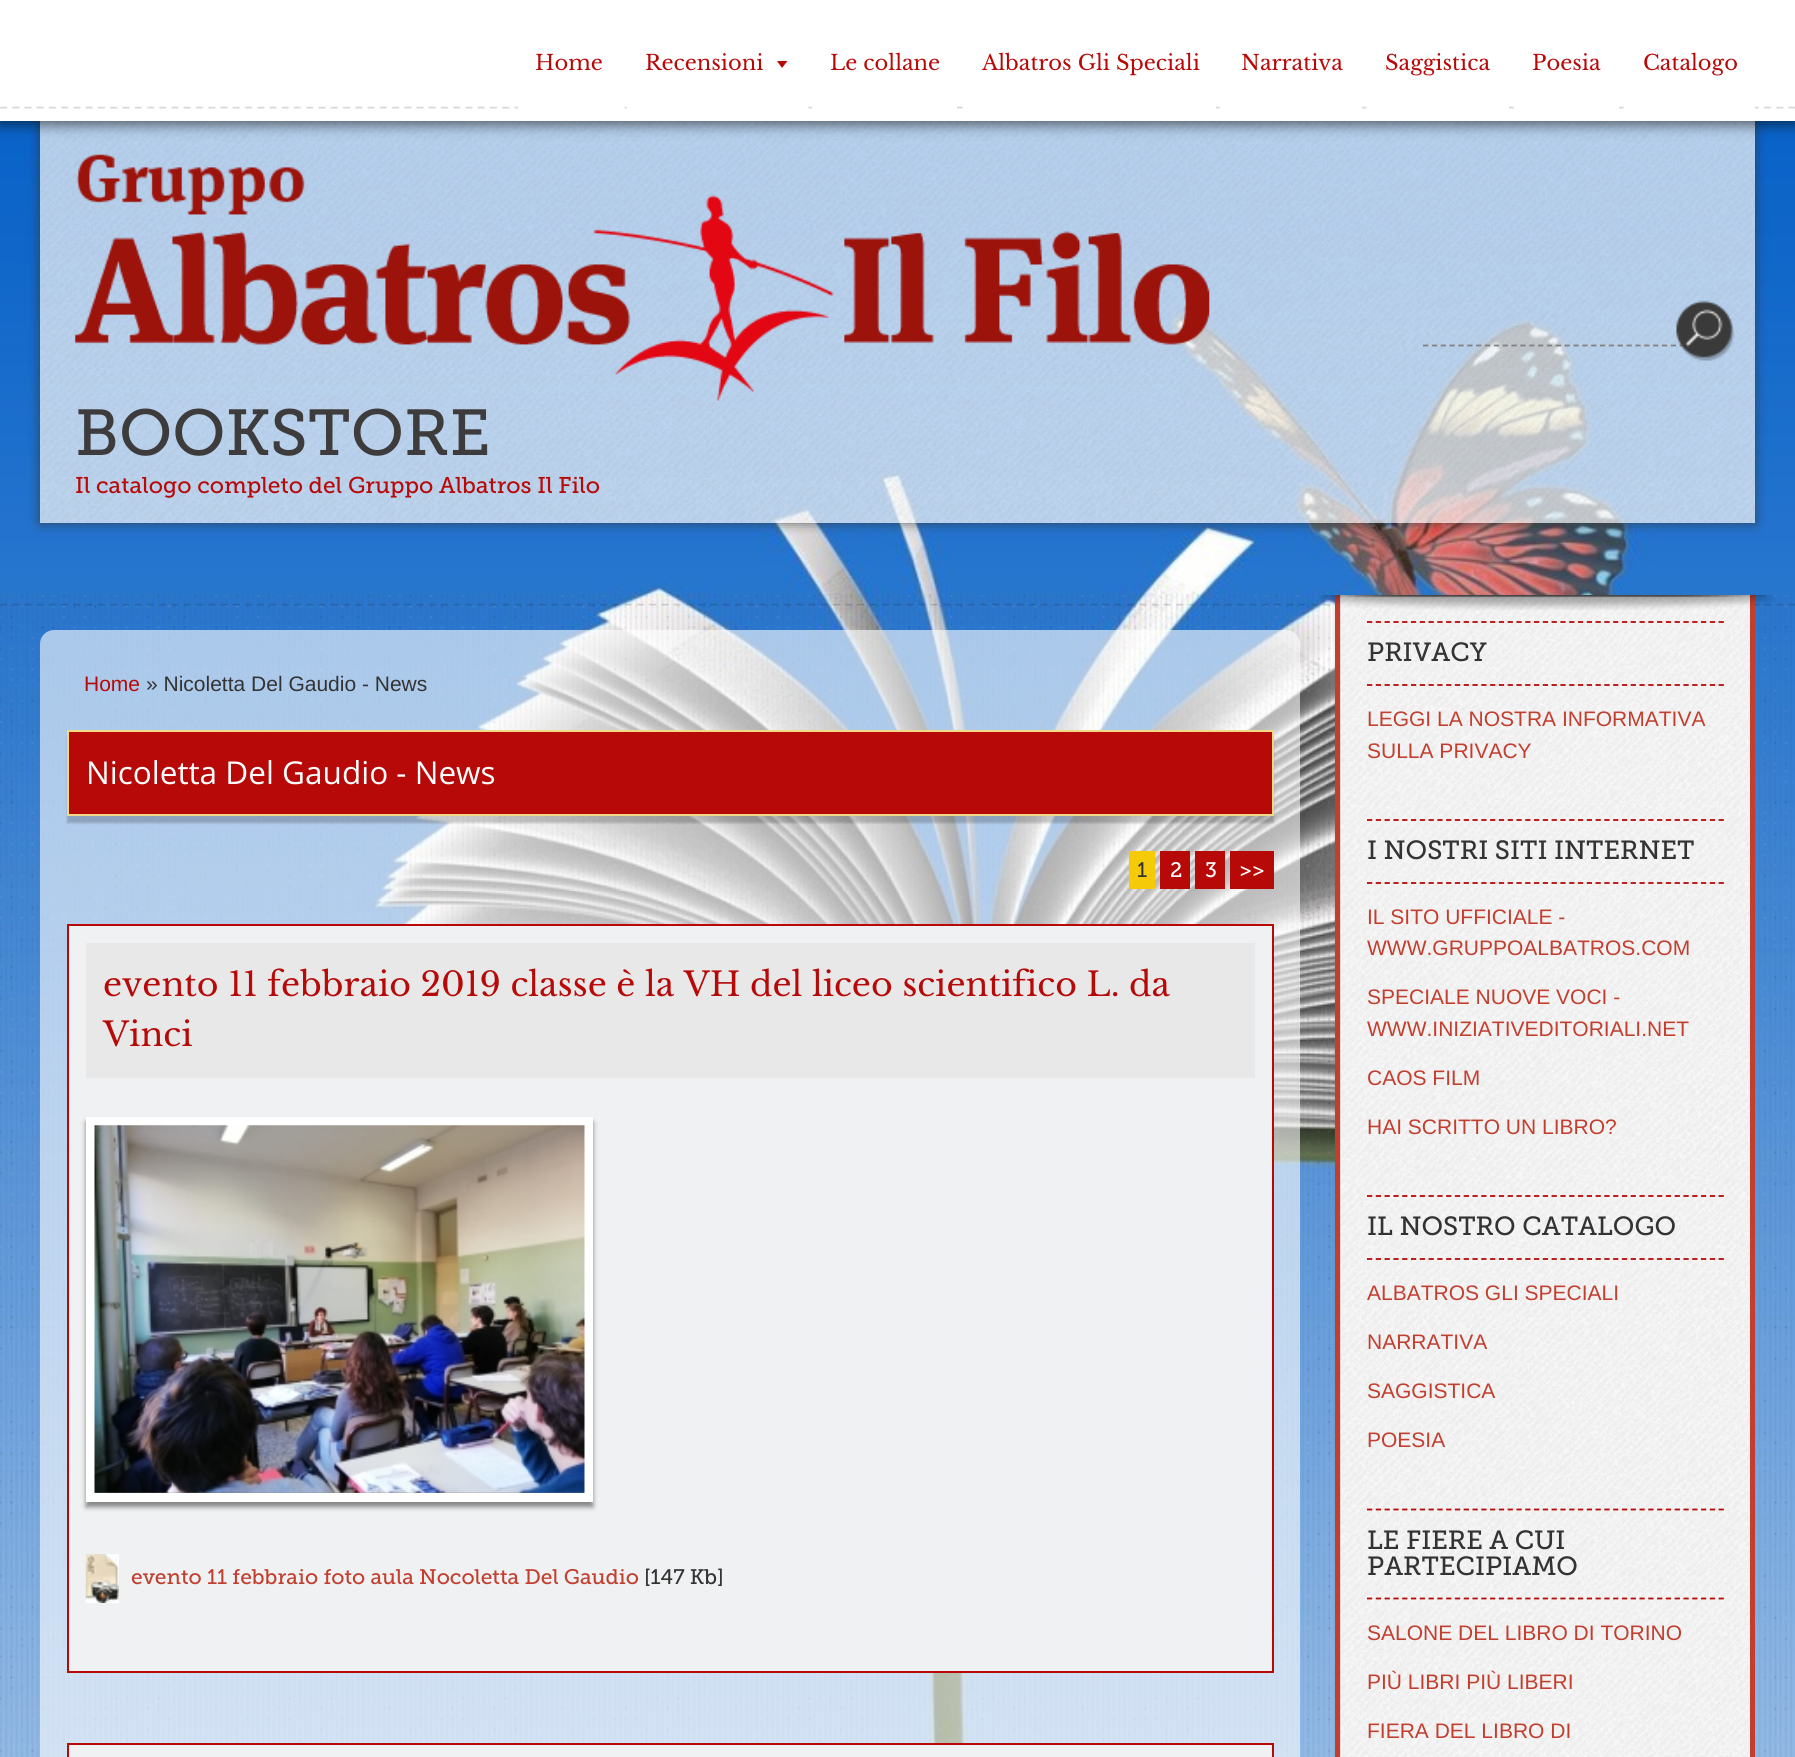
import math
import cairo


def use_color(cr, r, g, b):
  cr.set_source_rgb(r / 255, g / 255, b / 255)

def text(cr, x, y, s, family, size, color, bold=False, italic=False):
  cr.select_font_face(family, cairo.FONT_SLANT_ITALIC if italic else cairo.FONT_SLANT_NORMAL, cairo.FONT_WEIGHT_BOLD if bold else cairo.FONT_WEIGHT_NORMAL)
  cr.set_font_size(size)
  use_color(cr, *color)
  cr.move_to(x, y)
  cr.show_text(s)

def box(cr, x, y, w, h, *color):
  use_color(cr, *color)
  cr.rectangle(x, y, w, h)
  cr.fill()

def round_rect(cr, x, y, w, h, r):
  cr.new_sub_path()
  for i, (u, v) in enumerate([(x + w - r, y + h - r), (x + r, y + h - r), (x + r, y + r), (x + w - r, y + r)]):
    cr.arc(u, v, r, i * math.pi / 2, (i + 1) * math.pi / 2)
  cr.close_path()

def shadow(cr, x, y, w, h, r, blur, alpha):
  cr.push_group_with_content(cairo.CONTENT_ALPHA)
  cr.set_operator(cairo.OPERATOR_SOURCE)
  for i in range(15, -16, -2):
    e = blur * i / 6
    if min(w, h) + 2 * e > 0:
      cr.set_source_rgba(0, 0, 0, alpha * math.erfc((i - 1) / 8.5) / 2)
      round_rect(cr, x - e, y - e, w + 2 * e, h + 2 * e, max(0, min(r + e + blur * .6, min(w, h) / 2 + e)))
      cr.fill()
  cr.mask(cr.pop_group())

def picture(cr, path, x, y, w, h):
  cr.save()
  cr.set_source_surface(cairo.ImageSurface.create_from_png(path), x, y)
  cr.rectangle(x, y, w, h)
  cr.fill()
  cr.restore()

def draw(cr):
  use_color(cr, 255, 255, 255)
  cr.paint()
  picture(cr, "img_01.png", 0, 121, 1795, 1636)
  cr.save()
  cr.set_fill_rule(cairo.FILL_RULE_EVEN_ODD)
  cr.new_path()
  cr.move_to(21, 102)
  cr.line_to(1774, 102)
  cr.line_to(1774, 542)
  cr.line_to(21, 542)
  cr.close_path()
  cr.move_to(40, 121)
  cr.line_to(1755, 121)
  cr.line_to(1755, 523)
  cr.line_to(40, 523)
  cr.close_path()
  cr.clip()
  use_color(cr, 50, 50, 50)
  shadow(cr, 40, 121, 1715, 402, 0, 6, 0.75)
  cr.restore()
  cr.set_source_rgba(1, 1, 1, 0.7)
  cr.rectangle(40, 121, 1715, 402)
  cr.fill()
  picture(cr, "img_03.png", 40, 121, 1715, 402)
  use_color(cr, 0, 0, 0)
  shadow(cr, 0, 4, 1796, 120, 0, 7, 0.6)
  box(cr, 0, 0, 1795, 121, 255, 255, 255)
  picture(cr, "img_02.png", 0, 106, 1795, 3)
  box(cr, 518, 106, 102, 3, 255, 255, 255)
  box(cr, 627, 106, 177, 3, 255, 255, 255)
  use_color(cr, 184, 9, 9)
  cr.new_path()
  cr.move_to(777, 61)
  cr.line_to(787.5, 61)
  cr.line_to(782, 68)
  cr.close_path()
  cr.fill()
  box(cr, 812, 106, 145, 3, 255, 255, 255)
  box(cr, 967, 106, 249, 3, 255, 255, 255)
  box(cr, 1224, 106, 138, 3, 255, 255, 255)
  box(cr, 1371, 106, 138, 3, 255, 255, 255)
  box(cr, 1518, 106, 101, 3, 255, 255, 255)
  box(cr, 1628, 106, 127, 3, 255, 255, 255)
  cr.new_path()
  cr.move_to(1423, 345.5)
  cr.line_to(1720, 345.5)
  use_color(cr, 129, 129, 129)
  cr.set_line_width(1.8)
  cr.set_dash([5.25, 3.6])
  cr.stroke()
  picture(cr, "img_04.png", 1676, 300, 59, 61)
  picture(cr, "img_05.png", 75, 154, 1135, 247)
  picture(cr, "img_06.png", 0, 593, 1795, 1164)
  cr.set_source_rgba(1, 1, 1, 0.6)
  round_rect(cr, 40, 630, 1260, 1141, 14)
  cr.fill()
  use_color(cr, 0, 0, 0)
  shadow(cr, 67, 737, 1207, 86, 0, 1, 0.2)
  use_color(cr, 184, 9, 9)
  cr.rectangle(68, 731, 1205, 84)
  cr.fill_preserve()
  use_color(cr, 242, 217, 133)
  cr.set_line_width(2)
  cr.set_dash([])
  cr.stroke()
  box(cr, 1129, 851, 26, 38, 245, 202, 9)
  box(cr, 1160, 851, 30, 38, 184, 9, 9)
  box(cr, 1195, 851, 30, 38, 184, 9, 9)
  box(cr, 1230, 851, 44, 38, 184, 9, 9)
  use_color(cr, 239, 241, 242)
  cr.rectangle(68, 925, 1205, 747)
  cr.fill_preserve()
  use_color(cr, 184, 9, 9)
  cr.stroke()
  box(cr, 86, 943, 1169, 135, 232, 232, 232)
  use_color(cr, 0, 0, 0)
  shadow(cr, 86, 1122, 507, 385, 0, 2.5, 0.45)
  cr.rectangle(90.5, 1121.5, 498, 376)
  use_color(cr, 255, 255, 255)
  cr.set_line_width(9)
  cr.stroke()
  picture(cr, "img_07.png", 94, 1125, 491, 368)
  picture(cr, "img_08.png", 85, 1554, 34, 49)
  use_color(cr, 239, 241, 242)
  cr.rectangle(68, 1744, 1205, 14)
  cr.fill_preserve()
  use_color(cr, 184, 9, 9)
  cr.set_line_width(2)
  cr.stroke()
  box(cr, 1340, 595, 1, 1162, 227, 220, 220)
  box(cr, 1341, 595, 409, 1162, 249, 248, 248)
  picture(cr, "img_10.png", 1340, 595, 410, 1162)
  box(cr, 1750, 595, 5, 1162, 194, 62, 47)
  box(cr, 1335, 595, 5, 1162, 194, 62, 47)
  picture(cr, "img_09.png", 1319, 595, 456, 15)
  cr.new_path()
  cr.move_to(1367, 622)
  cr.line_to(1724, 622)
  use_color(cr, 184, 9, 9)
  cr.set_line_width(1.8)
  cr.set_dash([5.25, 3.54])
  cr.stroke()
  cr.new_path()
  cr.move_to(1367, 685)
  cr.line_to(1724, 685)
  cr.stroke()
  cr.new_path()
  cr.move_to(1367, 820)
  cr.line_to(1724, 820)
  cr.stroke()
  cr.new_path()
  cr.move_to(1367, 883)
  cr.line_to(1724, 883)
  cr.stroke()
  cr.new_path()
  cr.move_to(1367, 1196)
  cr.line_to(1724, 1196)
  cr.stroke()
  cr.new_path()
  cr.move_to(1367, 1259)
  cr.line_to(1724, 1259)
  cr.stroke()
  cr.new_path()
  cr.move_to(1367, 1509.5)
  cr.line_to(1724, 1509.5)
  cr.stroke()
  cr.new_path()
  cr.move_to(1367, 1598.5)
  cr.line_to(1724, 1598.5)
  cr.stroke()
  text(cr, 535, 70, "Home", "Libre Baskerville", 21, (184, 9, 9))
  text(cr, 645, 70, "Recensioni", "Libre Baskerville", 21, (184, 9, 9))
  text(cr, 830, 70, "Le collane", "Libre Baskerville", 21, (184, 9, 9))
  text(cr, 982, 70, "Albatros Gli Speciali", "Libre Baskerville", 21, (184, 9, 9))
  text(cr, 1241, 70, "Narrativa", "Libre Baskerville", 21, (184, 9, 9))
  text(cr, 1385, 70, "Saggistica", "Libre Baskerville", 21, (184, 9, 9))
  text(cr, 1532, 70, "Poesia", "Libre Baskerville", 21, (184, 9, 9))
  text(cr, 1643, 70, "Catalogo", "Libre Baskerville", 21, (184, 9, 9))
  text(cr, 75, 455, "BOOKSTORE", "Museo Slab", 64.75, (61, 59, 59))
  text(cr, 75, 493, "Il catalogo completo del Gruppo Albatros Il Filo", "Museo Slab", 22.75, (184, 9, 9))
  text(cr, 84, 691, "Home", "Liberation Sans", 21, (184, 9, 9))
  text(cr, 146, 691, "» Nicoletta Del Gaudio - News", "Liberation Sans", 21, (51, 51, 51))
  text(cr, 86, 784, "Nicoletta Del Gaudio - News", "Open Sans", 31.5, (255, 255, 255))
  text(cr, 1137, 877, "1", "Museo Slab", 21, (51, 51, 51))
  text(cr, 1170, 877, "2", "Museo Slab", 21, (255, 255, 255))
  text(cr, 1205, 877, "3", "Museo Slab", 21, (255, 255, 255))
  text(cr, 1239, 877, ">>", "Museo Slab", 21, (255, 255, 255))
  text(cr, 103, 996, "evento 11 febbraio 2019 classe è la VH del liceo scientifico L. da", "Libre Baskerville", 33.25, (184, 9, 9))
  text(cr, 103, 1046, "Vinci", "Libre Baskerville", 33.25, (184, 9, 9))
  text(cr, 131, 1584, "evento 11 febbraio foto aula Nocoletta Del Gaudio", "Museo Slab", 21, (194, 62, 47))
  text(cr, 644, 1584, "[147 Kb]", "Museo Slab", 21, (51, 51, 51))
  text(cr, 1367, 661, "PRIVACY", "Museo Slab", 26.25, (51, 51, 51))
  text(cr, 1367, 726, "LEGGI LA NOSTRA INFORMATIVA", "Liberation Sans", 21, (194, 62, 47))
  text(cr, 1367, 758, "SULLA PRIVACY", "Liberation Sans", 21, (194, 62, 47))
  text(cr, 1367, 859, "I NOSTRI SITI INTERNET", "Museo Slab", 26.25, (51, 51, 51))
  text(cr, 1367, 924, "IL SITO UFFICIALE -", "Liberation Sans", 21, (194, 62, 47))
  text(cr, 1367, 955, "WWW.GRUPPOALBATROS.COM", "Liberation Sans", 21, (194, 62, 47))
  text(cr, 1367, 1004, "SPECIALE NUOVE VOCI -", "Liberation Sans", 21, (194, 62, 47))
  text(cr, 1367, 1036, "WWW.INIZIATIVEDITORIALI.NET", "Liberation Sans", 21, (194, 62, 47))
  text(cr, 1367, 1085, "CAOS FILM", "Liberation Sans", 21, (194, 62, 47))
  text(cr, 1367, 1134, "HAI SCRITTO UN LIBRO?", "Liberation Sans", 21, (194, 62, 47))
  text(cr, 1367, 1235, "IL NOSTRO CATALOGO", "Museo Slab", 26.25, (51, 51, 51))
  text(cr, 1367, 1300, "ALBATROS GLI SPECIALI", "Liberation Sans", 21, (194, 62, 47))
  text(cr, 1367, 1349, "NARRATIVA", "Liberation Sans", 21, (194, 62, 47))
  text(cr, 1367, 1398, "SAGGISTICA", "Liberation Sans", 21, (194, 62, 47))
  text(cr, 1367, 1447, "POESIA", "Liberation Sans", 21, (194, 62, 47))
  text(cr, 1367, 1549, "LE FIERE A CUI", "Museo Slab", 26.25, (51, 51, 51))
  text(cr, 1367, 1575, "PARTECIPIAMO", "Museo Slab", 26.25, (51, 51, 51))
  text(cr, 1367, 1640, "SALONE DEL LIBRO DI TORINO", "Liberation Sans", 21, (194, 62, 47))
  text(cr, 1367, 1689, "PIÙ LIBRI PIÙ LIBERI", "Liberation Sans", 21, (194, 62, 47))
  text(cr, 1367, 1738, "FIERA DEL LIBRO DI", "Liberation Sans", 21, (194, 62, 47))


surface = cairo.ImageSurface(cairo.FORMAT_RGB24, 1795, 1757)
cr = cairo.Context(surface)
options = cairo.FontOptions()
options.set_hint_metrics(cairo.HINT_METRICS_OFF)
options.set_hint_style(cairo.HINT_STYLE_NONE)
cr.set_font_options(options)
cr.set_miter_limit(4)
draw(cr)
surface.write_to_png("out.png")
